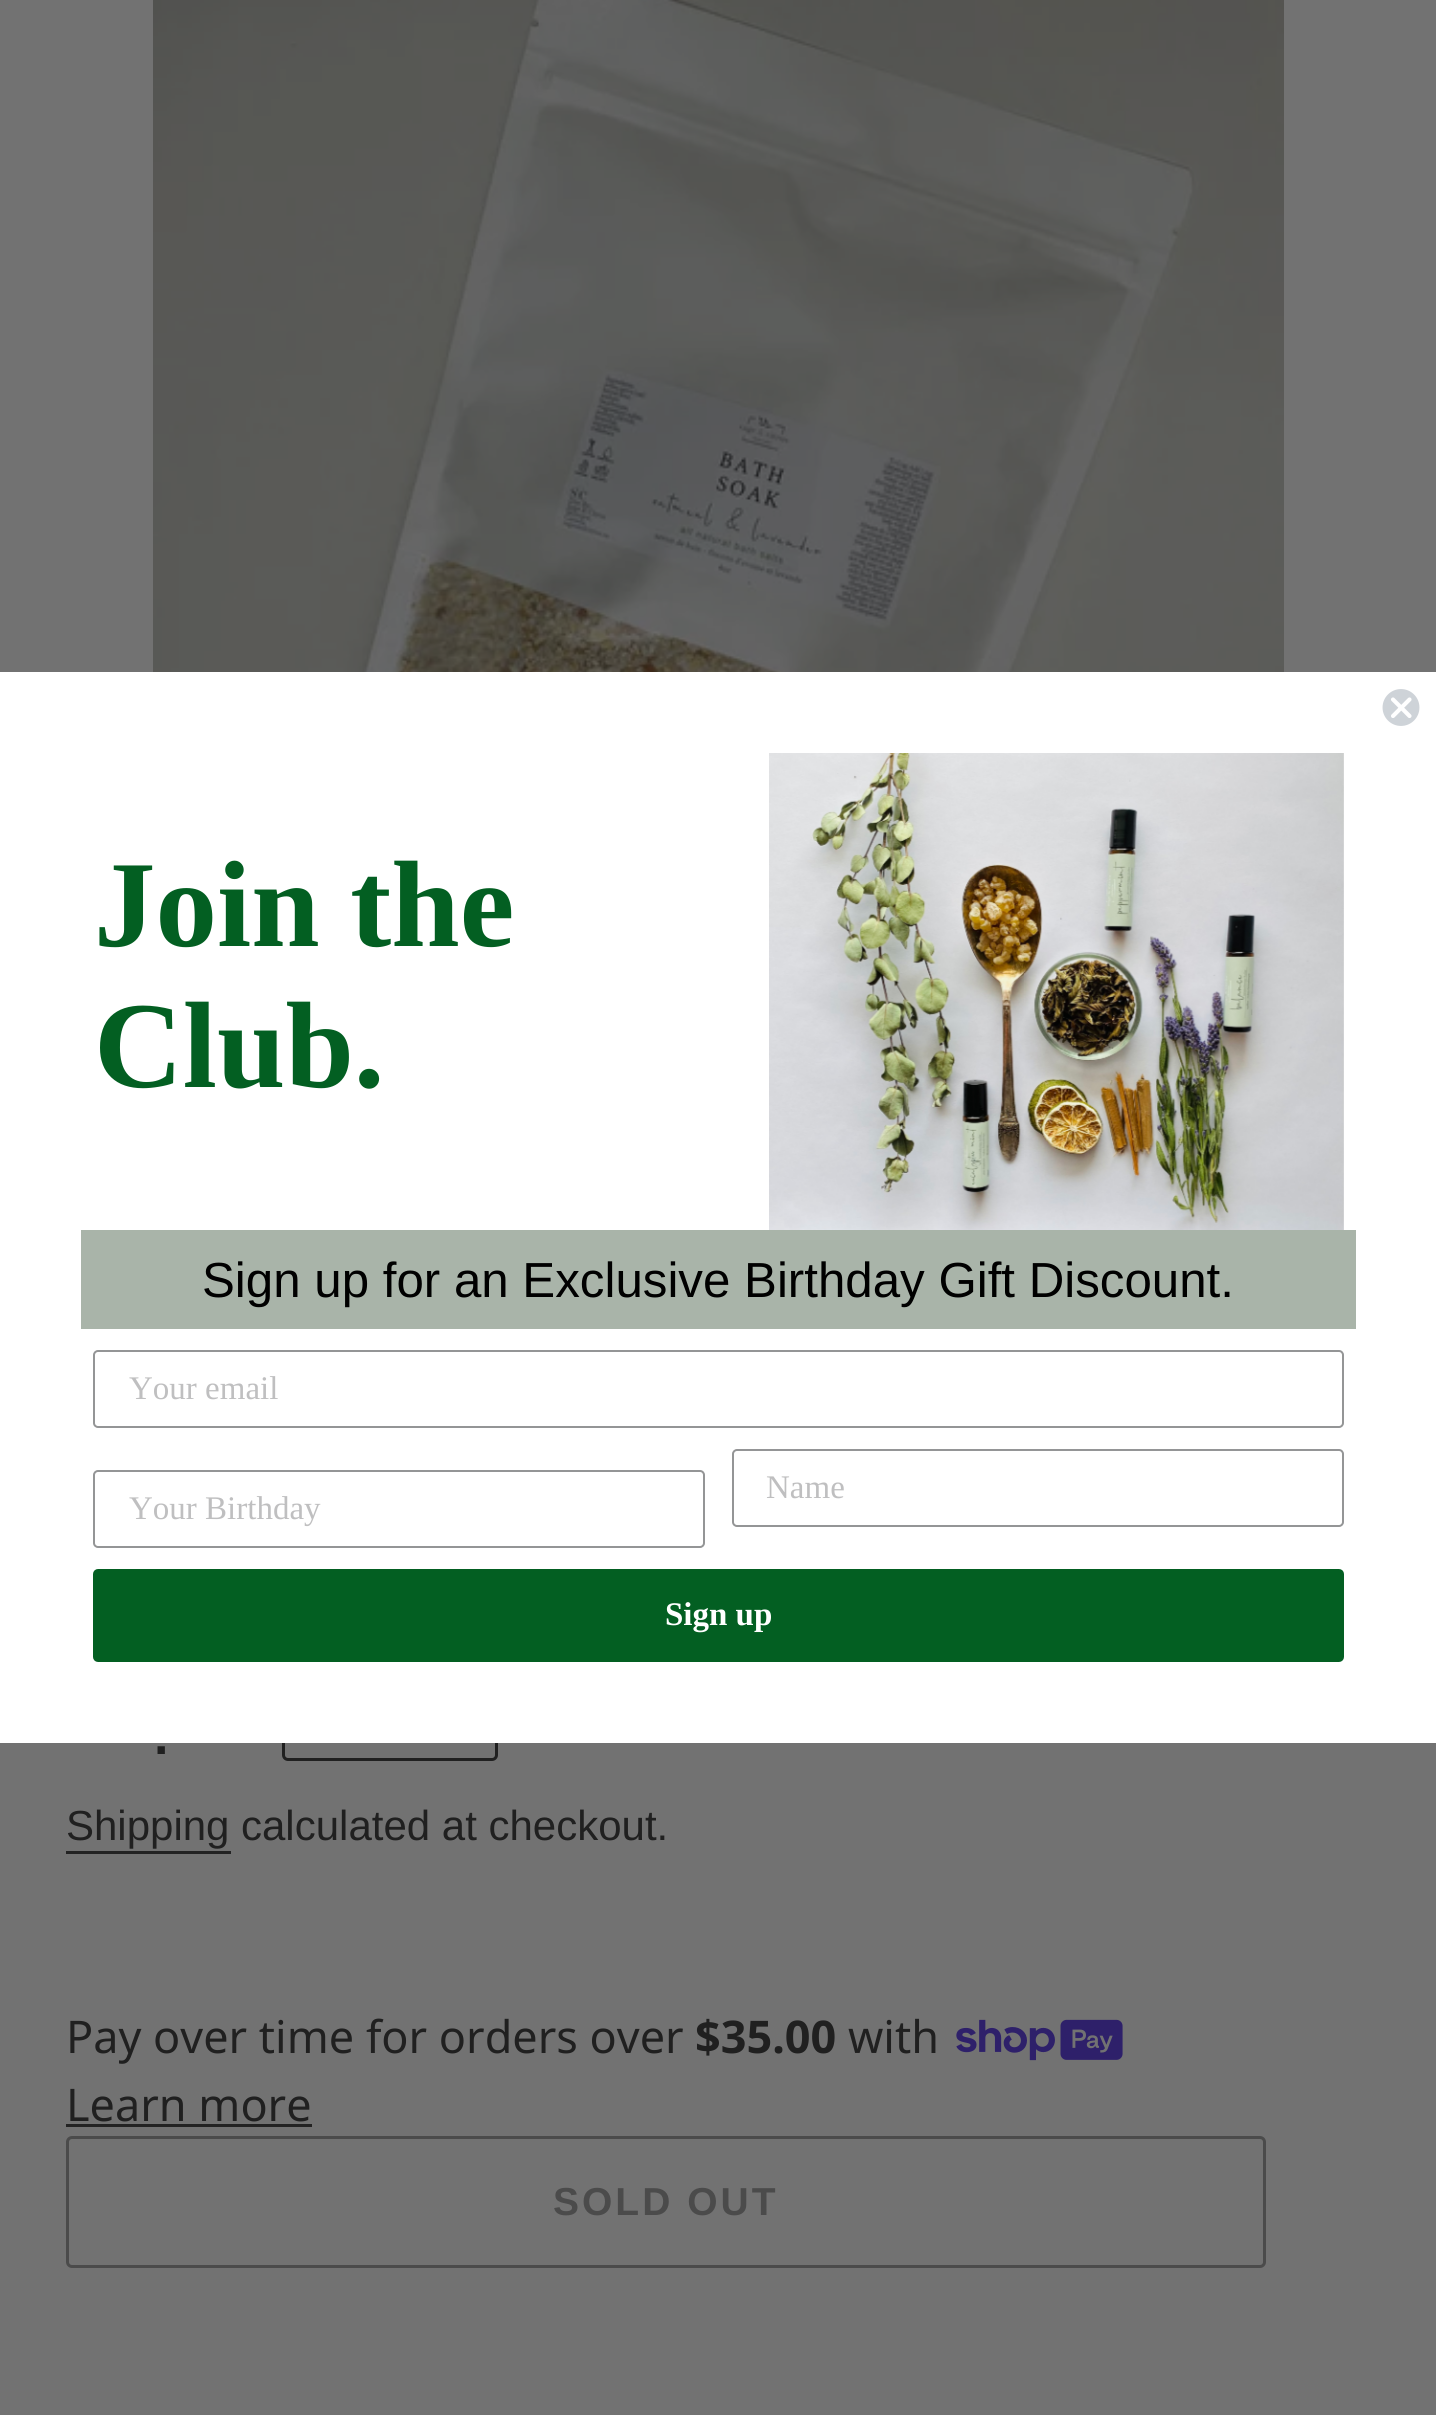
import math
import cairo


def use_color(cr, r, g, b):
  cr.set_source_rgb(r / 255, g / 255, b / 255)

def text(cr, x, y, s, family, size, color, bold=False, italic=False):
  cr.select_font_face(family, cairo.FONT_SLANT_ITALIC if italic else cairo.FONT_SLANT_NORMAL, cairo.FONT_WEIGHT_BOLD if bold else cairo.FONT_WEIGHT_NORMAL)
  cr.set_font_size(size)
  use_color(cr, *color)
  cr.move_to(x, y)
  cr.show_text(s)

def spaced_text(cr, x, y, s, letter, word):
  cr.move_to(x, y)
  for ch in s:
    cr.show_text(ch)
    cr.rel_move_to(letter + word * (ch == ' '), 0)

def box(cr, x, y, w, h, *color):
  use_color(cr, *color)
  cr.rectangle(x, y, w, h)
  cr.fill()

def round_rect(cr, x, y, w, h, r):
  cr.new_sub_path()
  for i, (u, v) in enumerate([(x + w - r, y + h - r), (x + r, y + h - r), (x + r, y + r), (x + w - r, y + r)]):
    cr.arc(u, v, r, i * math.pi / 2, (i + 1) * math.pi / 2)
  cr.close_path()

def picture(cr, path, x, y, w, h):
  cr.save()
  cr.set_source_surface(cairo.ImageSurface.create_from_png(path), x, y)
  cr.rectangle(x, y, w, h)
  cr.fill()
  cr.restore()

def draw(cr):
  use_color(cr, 114, 114, 114)
  cr.paint()
  round_rect(cr, 283.5, 1711.5, 213, 48, 4.5)
  use_color(cr, 32, 32, 32)
  cr.set_line_width(3)
  cr.stroke()
  box(cr, 0, 672, 1436, 1071, 255, 255, 255)
  use_color(cr, 206, 211, 216)
  cr.arc(1401, 707.5, 19.5, 0, 2 * math.pi)
  cr.fill_preserve()
  use_color(cr, 255, 255, 255)
  cr.set_line_width(2.1)
  cr.stroke()
  cr.new_path()
  cr.move_to(1393, 699.5)
  cr.line_to(1409.5, 716)
  cr.move_to(1393, 716)
  cr.line_to(1409.5, 699.5)
  cr.close_path()
  cr.set_line_width(4.1)
  cr.set_line_cap(cairo.LINE_CAP_ROUND)
  cr.set_line_join(cairo.LINE_JOIN_ROUND)
  cr.stroke()
  picture(cr, "img_01.png", 769, 753, 575, 477)
  box(cr, 81, 1230, 1275, 99, 169, 180, 169)
  round_rect(cr, 94, 1351, 1249, 76, 4)
  use_color(cr, 148, 149, 150)
  cr.set_line_width(2)
  cr.set_line_cap(cairo.LINE_CAP_BUTT)
  cr.set_line_join(cairo.LINE_JOIN_MITER)
  cr.stroke()
  round_rect(cr, 733, 1450, 610, 76, 4)
  cr.stroke()
  round_rect(cr, 94, 1471, 610, 76, 4)
  cr.stroke()
  use_color(cr, 3, 95, 34)
  round_rect(cr, 97, 1573, 1243, 85, 1)
  cr.fill_preserve()
  cr.set_line_width(8)
  cr.stroke()
  picture(cr, "img_02.png", 153, 0, 1131, 672)
  box(cr, 66, 1851, 165, 3, 35, 35, 35)
  picture(cr, "img_03.png", 956, 2019, 167, 42)
  box(cr, 66, 2124, 246, 3, 35, 35, 35)
  round_rect(cr, 67.5, 2137.5, 1197, 129, 4.5)
  use_color(cr, 75, 75, 75)
  cr.set_line_width(3)
  cr.stroke()
  text(cr, 94, 946, "Join the", "Liberation Serif", 123, (3, 95, 34), bold=True)
  text(cr, 94, 1087, "Club.", "Liberation Serif", 123, (3, 95, 34), bold=True)
  text(cr, 202, 1297, "Sign up for an Exclusive Birthday Gift Discount.", "Liberation Sans", 49.25, (0, 0, 0))
  text(cr, 129, 1399, "Your email", "Liberation Serif", 33, (191, 191, 192))
  text(cr, 766, 1498, "Name", "Liberation Serif", 33, (191, 191, 192))
  text(cr, 129, 1519, "Your Birthday", "Liberation Serif", 33, (191, 191, 192))
  text(cr, 665, 1625, "Sign up", "Liberation Serif", 33, (255, 255, 255), bold=True)
  text(cr, 154, 1754, ".", "Liberation Sans", 52, (32, 32, 32), bold=True)
  text(cr, 66, 1840, "Shipping", "Liberation Sans", 42, (32, 32, 32))
  text(cr, 241, 1840, "calculated at checkout.", "Liberation Sans", 42, (32, 32, 32))
  text(cr, 66, 2053, "Pay over time for orders over", "Noto Sans", 45, (32, 32, 32))
  text(cr, 695, 2053, "$35.00", "Noto Sans", 45, (32, 32, 32), bold=True)
  text(cr, 848, 2053, "with", "Noto Sans", 45, (32, 32, 32))
  text(cr, 66, 2121, "Learn more", "Noto Sans", 45, (32, 32, 32))
  cr.select_font_face("Liberation Sans", cairo.FONT_SLANT_NORMAL, cairo.FONT_WEIGHT_BOLD)
  cr.set_font_size(39)
  use_color(cr, 75, 75, 75)
  spaced_text(cr, 553, 2215, "SOLD OUT", 3, 0)


surface = cairo.ImageSurface(cairo.FORMAT_RGB24, 1436, 2415)
cr = cairo.Context(surface)
options = cairo.FontOptions()
options.set_hint_metrics(cairo.HINT_METRICS_OFF)
options.set_hint_style(cairo.HINT_STYLE_NONE)
cr.set_font_options(options)
cr.set_miter_limit(4)
draw(cr)
surface.write_to_png("out.png")
